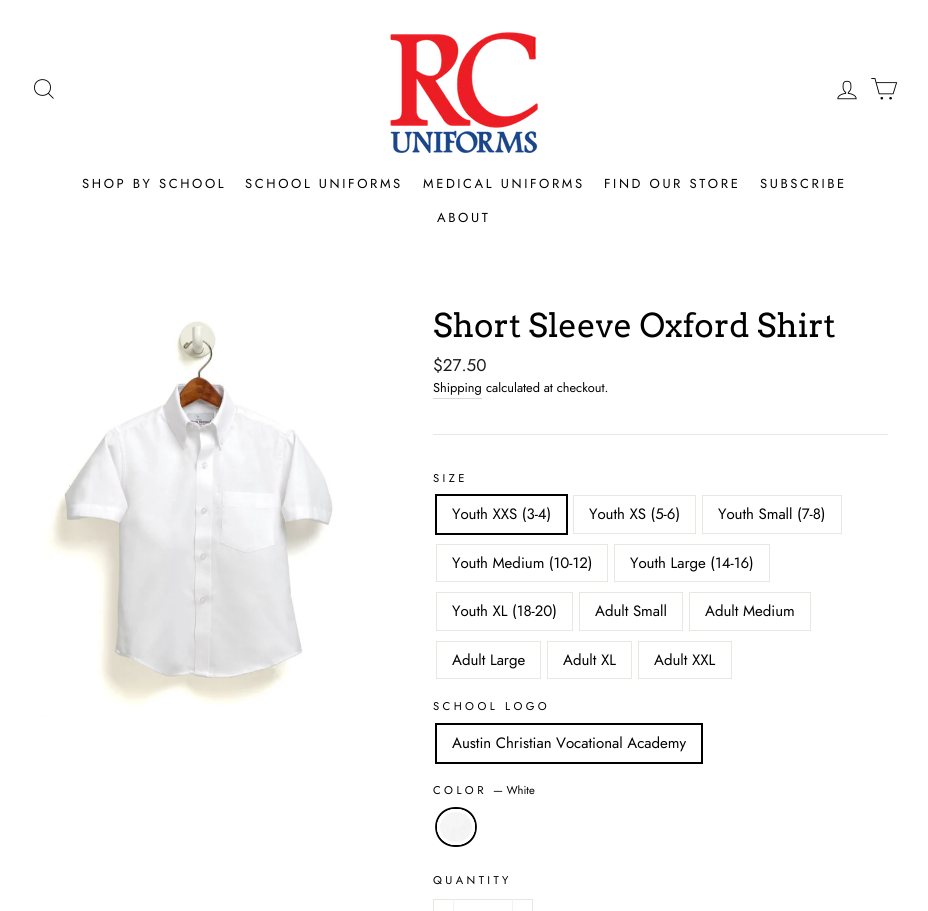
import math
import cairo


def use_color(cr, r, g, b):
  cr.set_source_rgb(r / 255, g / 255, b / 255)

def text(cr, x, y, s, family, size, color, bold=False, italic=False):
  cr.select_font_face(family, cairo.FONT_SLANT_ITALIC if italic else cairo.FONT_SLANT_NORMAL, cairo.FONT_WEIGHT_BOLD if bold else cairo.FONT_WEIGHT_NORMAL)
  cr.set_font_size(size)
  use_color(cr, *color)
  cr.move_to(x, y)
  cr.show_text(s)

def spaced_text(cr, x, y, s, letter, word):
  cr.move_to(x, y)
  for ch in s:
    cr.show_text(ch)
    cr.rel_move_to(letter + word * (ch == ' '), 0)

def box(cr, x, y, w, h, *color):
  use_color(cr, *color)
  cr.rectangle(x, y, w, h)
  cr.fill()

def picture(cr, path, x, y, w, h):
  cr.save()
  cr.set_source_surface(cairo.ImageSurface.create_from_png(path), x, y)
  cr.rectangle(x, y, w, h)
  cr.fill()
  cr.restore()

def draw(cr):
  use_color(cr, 255, 255, 255)
  cr.paint()
  cr.new_path()
  cr.move_to(50.5, 87.5)
  cr.curve_to(50.5, 98, 34.5, 98, 34.5, 87.5)
  cr.curve_to(34.5, 77, 50.5, 77, 50.5, 87.5)
  cr.close_path()
  cr.move_to(53.5, 98.5)
  cr.line_to(48.5, 93.5)
  use_color(cr, 0, 0, 0)
  cr.set_line_width(0.9)
  cr.stroke()
  picture(cr, "img_01.png", 390, 32, 148, 121)
  picture(cr, "img_02.png", 837, 80, 20, 20)
  picture(cr, "img_03.png", 871, 78, 27, 22)
  picture(cr, "img_04.png", 40, 321, 293, 397)
  box(cr, 433, 398, 49, 1, 217, 217, 217)
  box(cr, 433, 434, 455, 1, 232, 232, 225)
  cr.rectangle(436, 495, 131, 39)
  use_color(cr, 0, 0, 0)
  cr.set_line_width(2)
  cr.stroke()
  cr.rectangle(573.5, 495.5, 122, 38)
  use_color(cr, 232, 232, 225)
  cr.set_line_width(1)
  cr.stroke()
  cr.rectangle(702.5, 495.5, 139, 38)
  cr.stroke()
  cr.rectangle(436.5, 544.5, 171, 37)
  cr.stroke()
  cr.rectangle(614.5, 544.5, 155, 37)
  cr.stroke()
  cr.rectangle(436.5, 592.5, 136, 38)
  cr.stroke()
  cr.rectangle(579.5, 592.5, 103, 38)
  cr.stroke()
  cr.rectangle(689.5, 592.5, 121, 38)
  cr.stroke()
  cr.rectangle(436.5, 641.5, 104, 37)
  cr.stroke()
  cr.rectangle(547.5, 641.5, 84, 37)
  cr.stroke()
  cr.rectangle(638.5, 641.5, 93, 37)
  cr.stroke()
  cr.rectangle(436, 724, 266, 39)
  use_color(cr, 0, 0, 0)
  cr.set_line_width(2)
  cr.stroke()
  cr.new_path()
  cr.move_to(456, 808)
  cr.curve_to(482.5, 808, 482.5, 846, 456, 846)
  cr.curve_to(429.5, 846, 429.5, 808, 456, 808)
  cr.close_path()
  cr.stroke()
  picture(cr, "img_05.png", 437, 809, 38, 36)
  cr.save()
  cr.new_path()
  cr.move_to(456, 809)
  cr.curve_to(466.5, 809, 475, 817, 475, 827)
  cr.curve_to(475, 837, 466.5, 845, 456, 845)
  cr.curve_to(445.5, 845, 437, 837, 437, 827)
  cr.curve_to(437, 817, 445.5, 809, 456, 809)
  cr.close_path()
  cr.clip()
  cr.new_path()
  cr.move_to(456, 810)
  cr.curve_to(466, 810, 474, 817.5, 474, 827)
  cr.curve_to(474, 836.5, 466, 844, 456, 844)
  cr.curve_to(446, 844, 438, 836.5, 438, 827)
  cr.curve_to(438, 817.5, 446, 810, 456, 810)
  cr.close_path()
  use_color(cr, 255, 255, 255)
  cr.set_line_width(4)
  cr.stroke()
  cr.restore()
  cr.rectangle(433.5, 899.5, 99, 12)
  use_color(cr, 232, 232, 225)
  cr.set_line_width(1)
  cr.stroke()
  box(cr, 453, 899, 1, 12, 242, 242, 242)
  box(cr, 512, 899, 1, 12, 242, 242, 242)
  cr.select_font_face("Jost")
  cr.set_font_size(13)
  use_color(cr, 0, 0, 0)
  spaced_text(cr, 82, 188, "SHOP BY SCHOOL", 2.6, 0)
  spaced_text(cr, 245, 188, "SCHOOL UNIFORMS", 2.6, 0)
  spaced_text(cr, 423, 188, "MEDICAL UNIFORMS", 2.6, 0)
  spaced_text(cr, 604, 188, "FIND OUR STORE", 2.6, 0)
  spaced_text(cr, 760, 188, "SUBSCRIBE", 2.6, 0)
  spaced_text(cr, 437, 222, "ABOUT", 2.6, 0)
  text(cr, 433, 337, "Short Sleeve Oxford Shirt", "Arvo", 32.75, (0, 0, 0))
  text(cr, 433, 371, "$27.50", "Jost", 17, (28, 29, 29))
  text(cr, 433, 392, "Shipping", "Jost", 12.75, (0, 0, 0))
  text(cr, 486, 392, "calculated at checkout.", "Jost", 12.75, (0, 0, 0))
  cr.set_font_size(11.25)
  spaced_text(cr, 433, 482, "SIZE", 3.4, 0)
  text(cr, 452, 519, "Youth XXS (3-4)", "Jost", 15, (0, 0, 0))
  text(cr, 589, 519, "Youth XS (5-6)", "Jost", 15, (0, 0, 0))
  text(cr, 718, 519, "Youth Small (7-8)", "Jost", 15, (0, 0, 0))
  text(cr, 452, 568, "Youth Medium (10-12)", "Jost", 15, (0, 0, 0))
  text(cr, 630, 568, "Youth Large (14-16)", "Jost", 15, (0, 0, 0))
  text(cr, 452, 616, "Youth XL (18-20)", "Jost", 15, (0, 0, 0))
  text(cr, 595, 616, "Adult Small", "Jost", 15, (0, 0, 0))
  text(cr, 705, 616, "Adult Medium", "Jost", 15, (0, 0, 0))
  text(cr, 452, 665, "Adult Large", "Jost", 15, (0, 0, 0))
  text(cr, 563, 665, "Adult XL", "Jost", 15, (0, 0, 0))
  text(cr, 654, 665, "Adult XXL", "Jost", 15, (0, 0, 0))
  cr.set_font_size(11.25)
  spaced_text(cr, 433, 710, "SCHOOL LOGO", 3.4, 0)
  text(cr, 452, 748, "Austin Christian Vocational Academy", "Jost", 15, (0, 0, 0))
  cr.set_font_size(11.25)
  spaced_text(cr, 433, 794, "COLOR", 3.4, 0)
  text(cr, 493, 794, "— White", "Jost", 11.25, (0, 0, 0))
  spaced_text(cr, 433, 884, "QUANTITY", 3.4, 0)


surface = cairo.ImageSurface(cairo.FORMAT_RGB24, 928, 911)
cr = cairo.Context(surface)
options = cairo.FontOptions()
options.set_hint_metrics(cairo.HINT_METRICS_OFF)
options.set_hint_style(cairo.HINT_STYLE_NONE)
cr.set_font_options(options)
cr.set_miter_limit(4)
draw(cr)
surface.write_to_png("out.png")
